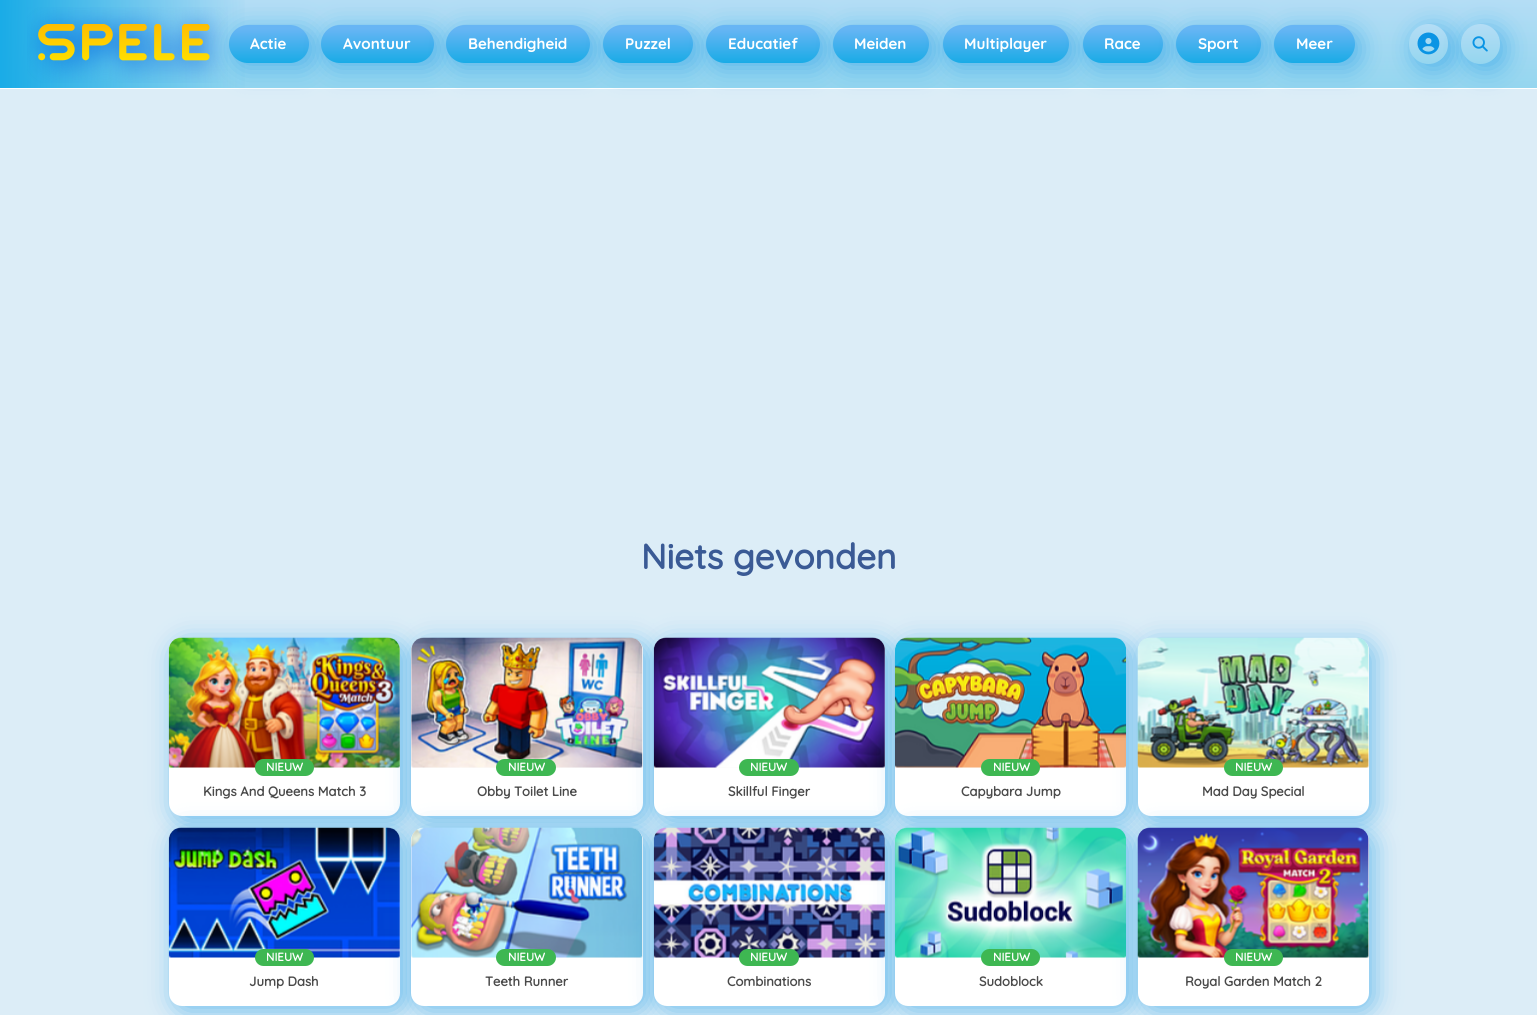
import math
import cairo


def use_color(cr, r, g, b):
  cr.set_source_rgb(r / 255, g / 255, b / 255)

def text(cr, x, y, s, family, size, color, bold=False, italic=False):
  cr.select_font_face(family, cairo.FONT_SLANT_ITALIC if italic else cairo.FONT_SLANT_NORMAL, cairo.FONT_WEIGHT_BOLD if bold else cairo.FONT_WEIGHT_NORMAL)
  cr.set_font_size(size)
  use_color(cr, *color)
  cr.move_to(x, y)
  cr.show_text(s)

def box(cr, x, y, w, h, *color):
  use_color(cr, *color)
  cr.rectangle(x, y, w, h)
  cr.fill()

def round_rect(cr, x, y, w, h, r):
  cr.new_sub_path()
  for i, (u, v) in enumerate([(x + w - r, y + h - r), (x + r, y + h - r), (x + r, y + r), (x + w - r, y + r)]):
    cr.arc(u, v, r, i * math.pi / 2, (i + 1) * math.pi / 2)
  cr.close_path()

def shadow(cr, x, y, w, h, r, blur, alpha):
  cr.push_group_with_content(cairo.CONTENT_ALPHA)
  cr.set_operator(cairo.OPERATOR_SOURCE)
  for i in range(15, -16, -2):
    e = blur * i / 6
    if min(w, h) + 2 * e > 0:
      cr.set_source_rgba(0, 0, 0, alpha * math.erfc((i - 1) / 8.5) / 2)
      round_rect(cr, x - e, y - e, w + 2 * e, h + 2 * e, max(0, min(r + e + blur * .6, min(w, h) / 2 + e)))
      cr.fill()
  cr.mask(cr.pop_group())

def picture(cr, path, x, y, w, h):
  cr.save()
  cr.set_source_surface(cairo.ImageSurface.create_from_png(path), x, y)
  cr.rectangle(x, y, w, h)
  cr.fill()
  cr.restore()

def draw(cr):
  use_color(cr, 220, 237, 247)
  cr.paint()
  gradient = cairo.LinearGradient(769, 88, 769, 0)
  gradient.add_color_stop_rgba(0, 0.584, 0.839, 0.937, 1)
  gradient.add_color_stop_rgba(1, 0.706, 0.867, 0.961, 1)
  cr.set_source(gradient)
  cr.rectangle(1, 0, 1536, 88)
  cr.fill()
  box(cr, 0, 88, 1537, 1, 255, 255, 255)
  gradient = cairo.LinearGradient(0, 44, 250, 44)
  gradient.add_color_stop_rgba(0, 0.098, 0.671, 0.902, 1)
  gradient.add_color_stop_rgba(1, 0.098, 0.671, 0.902, 0)
  cr.set_source(gradient)
  cr.rectangle(0, 0, 245, 88)
  cr.fill()
  picture(cr, "img_01.png", 27, 7, 201, 76)
  picture(cr, "img_02.png", 38, 24, 172, 37)
  use_color(cr, 10, 148, 228)
  shadow(cr, 234, 30, 80, 38, 19, 12.5, 0.5)
  gradient = cairo.LinearGradient(269, 63, 269, 25)
  gradient.add_color_stop_rgba(0, 0.098, 0.671, 0.902, 1)
  gradient.add_color_stop_rgba(0.9, 0.404, 0.71, 0.957, 1)
  cr.set_source(gradient)
  round_rect(cr, 229, 25, 80, 38, 19)
  cr.fill()
  use_color(cr, 10, 148, 228)
  shadow(cr, 326, 30, 113, 38, 19, 12.5, 0.5)
  gradient = cairo.LinearGradient(378, 63, 378, 25)
  gradient.add_color_stop_rgba(0, 0.098, 0.671, 0.902, 1)
  gradient.add_color_stop_rgba(0.9, 0.404, 0.71, 0.957, 1)
  cr.set_source(gradient)
  round_rect(cr, 321, 25, 113, 38, 19)
  cr.fill()
  use_color(cr, 10, 148, 228)
  shadow(cr, 451, 30, 144, 38, 19, 12.5, 0.5)
  gradient = cairo.LinearGradient(518, 63, 518, 25)
  gradient.add_color_stop_rgba(0, 0.098, 0.671, 0.902, 1)
  gradient.add_color_stop_rgba(0.9, 0.404, 0.71, 0.957, 1)
  cr.set_source(gradient)
  round_rect(cr, 446, 25, 144, 38, 19)
  cr.fill()
  use_color(cr, 10, 148, 228)
  shadow(cr, 608, 30, 90, 38, 19, 12.5, 0.5)
  gradient = cairo.LinearGradient(648, 63, 648, 25)
  gradient.add_color_stop_rgba(0, 0.098, 0.671, 0.902, 1)
  gradient.add_color_stop_rgba(0.9, 0.404, 0.71, 0.957, 1)
  cr.set_source(gradient)
  round_rect(cr, 603, 25, 90, 38, 19)
  cr.fill()
  use_color(cr, 10, 148, 228)
  shadow(cr, 711, 30, 114, 38, 19, 12.5, 0.5)
  gradient = cairo.LinearGradient(763, 63, 763, 25)
  gradient.add_color_stop_rgba(0, 0.098, 0.671, 0.902, 1)
  gradient.add_color_stop_rgba(0.9, 0.404, 0.71, 0.957, 1)
  cr.set_source(gradient)
  round_rect(cr, 706, 25, 114, 38, 19)
  cr.fill()
  use_color(cr, 10, 148, 228)
  shadow(cr, 838, 30, 96, 38, 19, 12.5, 0.5)
  gradient = cairo.LinearGradient(881, 63, 881, 25)
  gradient.add_color_stop_rgba(0, 0.098, 0.671, 0.902, 1)
  gradient.add_color_stop_rgba(0.9, 0.404, 0.71, 0.957, 1)
  cr.set_source(gradient)
  round_rect(cr, 833, 25, 96, 38, 19)
  cr.fill()
  use_color(cr, 10, 148, 228)
  shadow(cr, 948, 30, 126, 38, 19, 12.5, 0.5)
  gradient = cairo.LinearGradient(1006, 63, 1006, 25)
  gradient.add_color_stop_rgba(0, 0.098, 0.671, 0.902, 1)
  gradient.add_color_stop_rgba(0.9, 0.404, 0.71, 0.957, 1)
  cr.set_source(gradient)
  round_rect(cr, 943, 25, 126, 38, 19)
  cr.fill()
  use_color(cr, 10, 148, 228)
  shadow(cr, 1088, 30, 80, 38, 19, 12.5, 0.5)
  gradient = cairo.LinearGradient(1123, 63, 1123, 25)
  gradient.add_color_stop_rgba(0, 0.098, 0.671, 0.902, 1)
  gradient.add_color_stop_rgba(0.9, 0.404, 0.71, 0.957, 1)
  cr.set_source(gradient)
  round_rect(cr, 1083, 25, 80, 38, 19)
  cr.fill()
  use_color(cr, 10, 148, 228)
  shadow(cr, 1181, 30, 85, 38, 19, 12.5, 0.5)
  gradient = cairo.LinearGradient(1219, 63, 1219, 25)
  gradient.add_color_stop_rgba(0, 0.098, 0.671, 0.902, 1)
  gradient.add_color_stop_rgba(0.9, 0.404, 0.71, 0.957, 1)
  cr.set_source(gradient)
  round_rect(cr, 1176, 25, 85, 38, 19)
  cr.fill()
  use_color(cr, 10, 148, 228)
  shadow(cr, 1279, 30, 81, 38, 19, 12.5, 0.5)
  gradient = cairo.LinearGradient(1314, 63, 1314, 25)
  gradient.add_color_stop_rgba(0, 0.098, 0.671, 0.902, 1)
  gradient.add_color_stop_rgba(0.9, 0.404, 0.71, 0.957, 1)
  cr.set_source(gradient)
  round_rect(cr, 1274, 25, 81, 38, 19)
  cr.fill()
  use_color(cr, 10, 148, 228)
  shadow(cr, 1414, 29, 39, 40, 19.5, 12.5, 0.5)
  gradient = cairo.LinearGradient(1428, 64, 1428, 24)
  gradient.add_color_stop_rgba(0, 0.584, 0.839, 0.937, 1)
  gradient.add_color_stop_rgba(1, 0.706, 0.867, 0.961, 1)
  cr.set_source(gradient)
  round_rect(cr, 1409, 24, 39, 40, 19.5)
  cr.fill()
  picture(cr, "img_03.png", 1417, 32, 23, 23)
  use_color(cr, 10, 148, 228)
  shadow(cr, 1466, 29, 39, 40, 19.5, 12.5, 0.5)
  gradient = cairo.LinearGradient(1481, 64, 1481, 24)
  gradient.add_color_stop_rgba(0, 0.584, 0.839, 0.937, 1)
  gradient.add_color_stop_rgba(1, 0.706, 0.867, 0.961, 1)
  cr.set_source(gradient)
  round_rect(cr, 1461, 24, 39, 40, 19.5)
  cr.fill()
  picture(cr, "img_04.png", 1472, 36, 16, 16)
  use_color(cr, 10, 148, 228)
  shadow(cr, 174, 643, 231, 178, 13, 12.5, 0.5)
  use_color(cr, 255, 255, 255)
  round_rect(cr, 169, 638, 231, 178, 13)
  cr.fill()
  use_color(cr, 250, 250, 250)
  cr.new_path()
  cr.move_to(182, 638)
  cr.line_to(387, 638)
  cr.curve_to(394, 638, 400, 644, 400, 651)
  cr.line_to(400, 765.5)
  cr.curve_to(400, 767, 399, 768, 397.5, 768)
  cr.line_to(171.5, 768)
  cr.curve_to(170, 768, 169, 767, 169, 765.5)
  cr.line_to(169, 651)
  cr.curve_to(169, 644, 175, 638, 182, 638)
  cr.close_path()
  cr.fill()
  picture(cr, "img_05.png", 168, 637, 232, 131)
  use_color(cr, 62, 183, 82)
  round_rect(cr, 255, 759, 59, 17, 8.5)
  cr.fill()
  use_color(cr, 10, 148, 228)
  shadow(cr, 416, 643, 232, 178, 13, 12.5, 0.5)
  use_color(cr, 255, 255, 255)
  round_rect(cr, 411, 638, 232, 178, 13)
  cr.fill()
  use_color(cr, 250, 250, 250)
  cr.new_path()
  cr.move_to(424, 638)
  cr.line_to(630, 638)
  cr.curve_to(637, 638, 643, 644, 643, 651)
  cr.line_to(643, 765.5)
  cr.curve_to(643, 767, 642, 768, 640.5, 768)
  cr.line_to(413.5, 768)
  cr.curve_to(412, 768, 411, 767, 411, 765.5)
  cr.line_to(411, 651)
  cr.curve_to(411, 644, 417, 638, 424, 638)
  cr.close_path()
  cr.fill()
  picture(cr, "img_06.png", 411, 637, 232, 131)
  use_color(cr, 62, 183, 82)
  round_rect(cr, 496, 759, 60, 17, 8.5)
  cr.fill()
  use_color(cr, 10, 148, 228)
  shadow(cr, 659, 643, 231, 178, 13, 12.5, 0.5)
  use_color(cr, 255, 255, 255)
  round_rect(cr, 654, 638, 231, 178, 13)
  cr.fill()
  use_color(cr, 250, 250, 250)
  cr.new_path()
  cr.move_to(667, 638)
  cr.line_to(872, 638)
  cr.curve_to(879, 638, 885, 644, 885, 651)
  cr.line_to(885, 765.5)
  cr.curve_to(885, 767, 884, 768, 882.5, 768)
  cr.line_to(656.5, 768)
  cr.curve_to(655, 768, 654, 767, 654, 765.5)
  cr.line_to(654, 651)
  cr.curve_to(654, 644, 660, 638, 667, 638)
  cr.close_path()
  cr.fill()
  picture(cr, "img_07.png", 653, 637, 232, 131)
  use_color(cr, 62, 183, 82)
  round_rect(cr, 739, 759, 60, 17, 8.5)
  cr.fill()
  use_color(cr, 10, 148, 228)
  shadow(cr, 900, 643, 231, 178, 13, 12.5, 0.5)
  use_color(cr, 255, 255, 255)
  round_rect(cr, 895, 638, 231, 178, 13)
  cr.fill()
  use_color(cr, 250, 250, 250)
  cr.new_path()
  cr.move_to(908, 638)
  cr.line_to(1113, 638)
  cr.curve_to(1120, 638, 1126, 644, 1126, 651)
  cr.line_to(1126, 765.5)
  cr.curve_to(1126, 767, 1125, 768, 1123.5, 768)
  cr.line_to(897.5, 768)
  cr.curve_to(896, 768, 895, 767, 895, 765.5)
  cr.line_to(895, 651)
  cr.curve_to(895, 644, 901, 638, 908, 638)
  cr.close_path()
  cr.fill()
  picture(cr, "img_08.png", 895, 637, 231, 131)
  use_color(cr, 62, 183, 82)
  round_rect(cr, 981, 759, 59, 17, 8.5)
  cr.fill()
  use_color(cr, 10, 148, 228)
  shadow(cr, 1143, 643, 231, 178, 13, 12.5, 0.5)
  use_color(cr, 255, 255, 255)
  round_rect(cr, 1138, 638, 231, 178, 13)
  cr.fill()
  use_color(cr, 250, 250, 250)
  cr.new_path()
  cr.move_to(1151, 638)
  cr.line_to(1356, 638)
  cr.curve_to(1363, 638, 1369, 644, 1369, 651)
  cr.line_to(1369, 765.5)
  cr.curve_to(1369, 767, 1368, 768, 1366.5, 768)
  cr.line_to(1140.5, 768)
  cr.curve_to(1139, 768, 1138, 767, 1138, 765.5)
  cr.line_to(1138, 651)
  cr.curve_to(1138, 644, 1144, 638, 1151, 638)
  cr.close_path()
  cr.fill()
  picture(cr, "img_09.png", 1137, 637, 232, 131)
  use_color(cr, 62, 183, 82)
  round_rect(cr, 1224, 759, 59, 17, 8.5)
  cr.fill()
  use_color(cr, 10, 148, 228)
  shadow(cr, 174, 833, 231, 178, 13, 12.5, 0.5)
  use_color(cr, 255, 255, 255)
  round_rect(cr, 169, 828, 231, 178, 13)
  cr.fill()
  use_color(cr, 250, 250, 250)
  cr.new_path()
  cr.move_to(182, 828)
  cr.line_to(387, 828)
  cr.curve_to(394, 828, 400, 834, 400, 841)
  cr.line_to(400, 955.5)
  cr.curve_to(400, 957, 399, 958, 397.5, 958)
  cr.line_to(171.5, 958)
  cr.curve_to(170, 958, 169, 957, 169, 955.5)
  cr.line_to(169, 841)
  cr.curve_to(169, 834, 175, 828, 182, 828)
  cr.close_path()
  cr.fill()
  picture(cr, "img_10.png", 168, 827, 232, 131)
  use_color(cr, 62, 183, 82)
  round_rect(cr, 255, 949, 59, 17, 8.5)
  cr.fill()
  use_color(cr, 10, 148, 228)
  shadow(cr, 416, 833, 232, 178, 13, 12.5, 0.5)
  use_color(cr, 255, 255, 255)
  round_rect(cr, 411, 828, 232, 178, 13)
  cr.fill()
  use_color(cr, 250, 250, 250)
  cr.new_path()
  cr.move_to(424, 828)
  cr.line_to(630, 828)
  cr.curve_to(637, 828, 643, 834, 643, 841)
  cr.line_to(643, 955.5)
  cr.curve_to(643, 957, 642, 958, 640.5, 958)
  cr.line_to(413.5, 958)
  cr.curve_to(412, 958, 411, 957, 411, 955.5)
  cr.line_to(411, 841)
  cr.curve_to(411, 834, 417, 828, 424, 828)
  cr.close_path()
  cr.fill()
  picture(cr, "img_11.png", 411, 827, 232, 131)
  use_color(cr, 62, 183, 82)
  round_rect(cr, 496, 949, 60, 17, 8.5)
  cr.fill()
  use_color(cr, 10, 148, 228)
  shadow(cr, 659, 833, 231, 178, 13, 12.5, 0.5)
  use_color(cr, 255, 255, 255)
  round_rect(cr, 654, 828, 231, 178, 13)
  cr.fill()
  use_color(cr, 250, 250, 250)
  cr.new_path()
  cr.move_to(667, 828)
  cr.line_to(872, 828)
  cr.curve_to(879, 828, 885, 834, 885, 841)
  cr.line_to(885, 955.5)
  cr.curve_to(885, 957, 884, 958, 882.5, 958)
  cr.line_to(656.5, 958)
  cr.curve_to(655, 958, 654, 957, 654, 955.5)
  cr.line_to(654, 841)
  cr.curve_to(654, 834, 660, 828, 667, 828)
  cr.close_path()
  cr.fill()
  picture(cr, "img_12.png", 653, 827, 232, 131)
  use_color(cr, 62, 183, 82)
  round_rect(cr, 739, 949, 60, 17, 8.5)
  cr.fill()
  use_color(cr, 10, 148, 228)
  shadow(cr, 900, 833, 231, 178, 13, 12.5, 0.5)
  use_color(cr, 255, 255, 255)
  round_rect(cr, 895, 828, 231, 178, 13)
  cr.fill()
  use_color(cr, 250, 250, 250)
  cr.new_path()
  cr.move_to(908, 828)
  cr.line_to(1113, 828)
  cr.curve_to(1120, 828, 1126, 834, 1126, 841)
  cr.line_to(1126, 955.5)
  cr.curve_to(1126, 957, 1125, 958, 1123.5, 958)
  cr.line_to(897.5, 958)
  cr.curve_to(896, 958, 895, 957, 895, 955.5)
  cr.line_to(895, 841)
  cr.curve_to(895, 834, 901, 828, 908, 828)
  cr.close_path()
  cr.fill()
  picture(cr, "img_13.png", 895, 827, 231, 131)
  use_color(cr, 62, 183, 82)
  round_rect(cr, 981, 949, 59, 17, 8.5)
  cr.fill()
  use_color(cr, 10, 148, 228)
  shadow(cr, 1143, 833, 231, 178, 13, 12.5, 0.5)
  use_color(cr, 255, 255, 255)
  round_rect(cr, 1138, 828, 231, 178, 13)
  cr.fill()
  use_color(cr, 250, 250, 250)
  cr.new_path()
  cr.move_to(1151, 828)
  cr.line_to(1356, 828)
  cr.curve_to(1363, 828, 1369, 834, 1369, 841)
  cr.line_to(1369, 955.5)
  cr.curve_to(1369, 957, 1368, 958, 1366.5, 958)
  cr.line_to(1140.5, 958)
  cr.curve_to(1139, 958, 1138, 957, 1138, 955.5)
  cr.line_to(1138, 841)
  cr.curve_to(1138, 834, 1144, 828, 1151, 828)
  cr.close_path()
  cr.fill()
  picture(cr, "img_14.png", 1137, 827, 232, 131)
  use_color(cr, 62, 183, 82)
  round_rect(cr, 1224, 949, 59, 17, 8.5)
  cr.fill()
  text(cr, 250, 49, "Actie", "Quicksand Light", 15.25, (255, 255, 255))
  text(cr, 343, 49, "Avontuur", "Quicksand Light", 15.25, (255, 255, 255))
  text(cr, 468, 49, "Behendigheid", "Quicksand Light", 15.25, (255, 255, 255))
  text(cr, 625, 49, "Puzzel", "Quicksand Light", 15.25, (255, 255, 255))
  text(cr, 728, 49, "Educatief", "Quicksand Light", 15.25, (255, 255, 255))
  text(cr, 854, 49, "Meiden", "Quicksand Light", 15.25, (255, 255, 255))
  text(cr, 964, 49, "Multiplayer", "Quicksand Light", 15.25, (255, 255, 255))
  text(cr, 1104, 49, "Race", "Quicksand Light", 15.25, (255, 255, 255))
  text(cr, 1198, 49, "Sport", "Quicksand Light", 15.25, (255, 255, 255))
  text(cr, 1296, 49, "Meer", "Quicksand Light", 15.25, (255, 255, 255))
  text(cr, 641, 569, "Niets gevonden", "Quicksand", 35, (58, 90, 149), bold=True)
  text(cr, 266, 771, "NIEUW", "Quicksand", 11.5, (255, 255, 255), bold=True)
  text(cr, 203, 796, "Kings And Queens Match 3", "Quicksand", 13.1, (74, 74, 74), bold=True)
  text(cr, 508, 771, "NIEUW", "Quicksand", 11.5, (255, 255, 255), bold=True)
  text(cr, 477, 796, "Obby Toilet Line", "Quicksand", 13.1, (74, 74, 74), bold=True)
  text(cr, 750, 771, "NIEUW", "Quicksand", 11.5, (255, 255, 255), bold=True)
  text(cr, 728, 796, "Skillful Finger", "Quicksand", 13.1, (74, 74, 74), bold=True)
  text(cr, 993, 771, "NIEUW", "Quicksand", 11.5, (255, 255, 255), bold=True)
  text(cr, 961, 796, "Capybara Jump", "Quicksand", 13.1, (74, 74, 74), bold=True)
  text(cr, 1235, 771, "NIEUW", "Quicksand", 11.5, (255, 255, 255), bold=True)
  text(cr, 1202, 796, "Mad Day Special", "Quicksand", 13.1, (74, 74, 74), bold=True)
  text(cr, 266, 961, "NIEUW", "Quicksand", 11.5, (255, 255, 255), bold=True)
  text(cr, 249, 986, "Jump Dash", "Quicksand", 13.1, (74, 74, 74), bold=True)
  text(cr, 508, 961, "NIEUW", "Quicksand", 11.5, (255, 255, 255), bold=True)
  text(cr, 485, 986, "Teeth Runner", "Quicksand", 13.1, (74, 74, 74), bold=True)
  text(cr, 750, 961, "NIEUW", "Quicksand", 11.5, (255, 255, 255), bold=True)
  text(cr, 727, 986, "Combinations", "Quicksand", 13.1, (74, 74, 74), bold=True)
  text(cr, 993, 961, "NIEUW", "Quicksand", 11.5, (255, 255, 255), bold=True)
  text(cr, 979, 986, "Sudoblock", "Quicksand", 13.1, (74, 74, 74), bold=True)
  text(cr, 1235, 961, "NIEUW", "Quicksand", 11.5, (255, 255, 255), bold=True)
  text(cr, 1185, 986, "Royal Garden Match 2", "Quicksand", 13.1, (74, 74, 74), bold=True)


surface = cairo.ImageSurface(cairo.FORMAT_RGB24, 1537, 1015)
cr = cairo.Context(surface)
options = cairo.FontOptions()
options.set_hint_metrics(cairo.HINT_METRICS_OFF)
options.set_hint_style(cairo.HINT_STYLE_NONE)
cr.set_font_options(options)
cr.set_miter_limit(4)
draw(cr)
surface.write_to_png("out.png")
